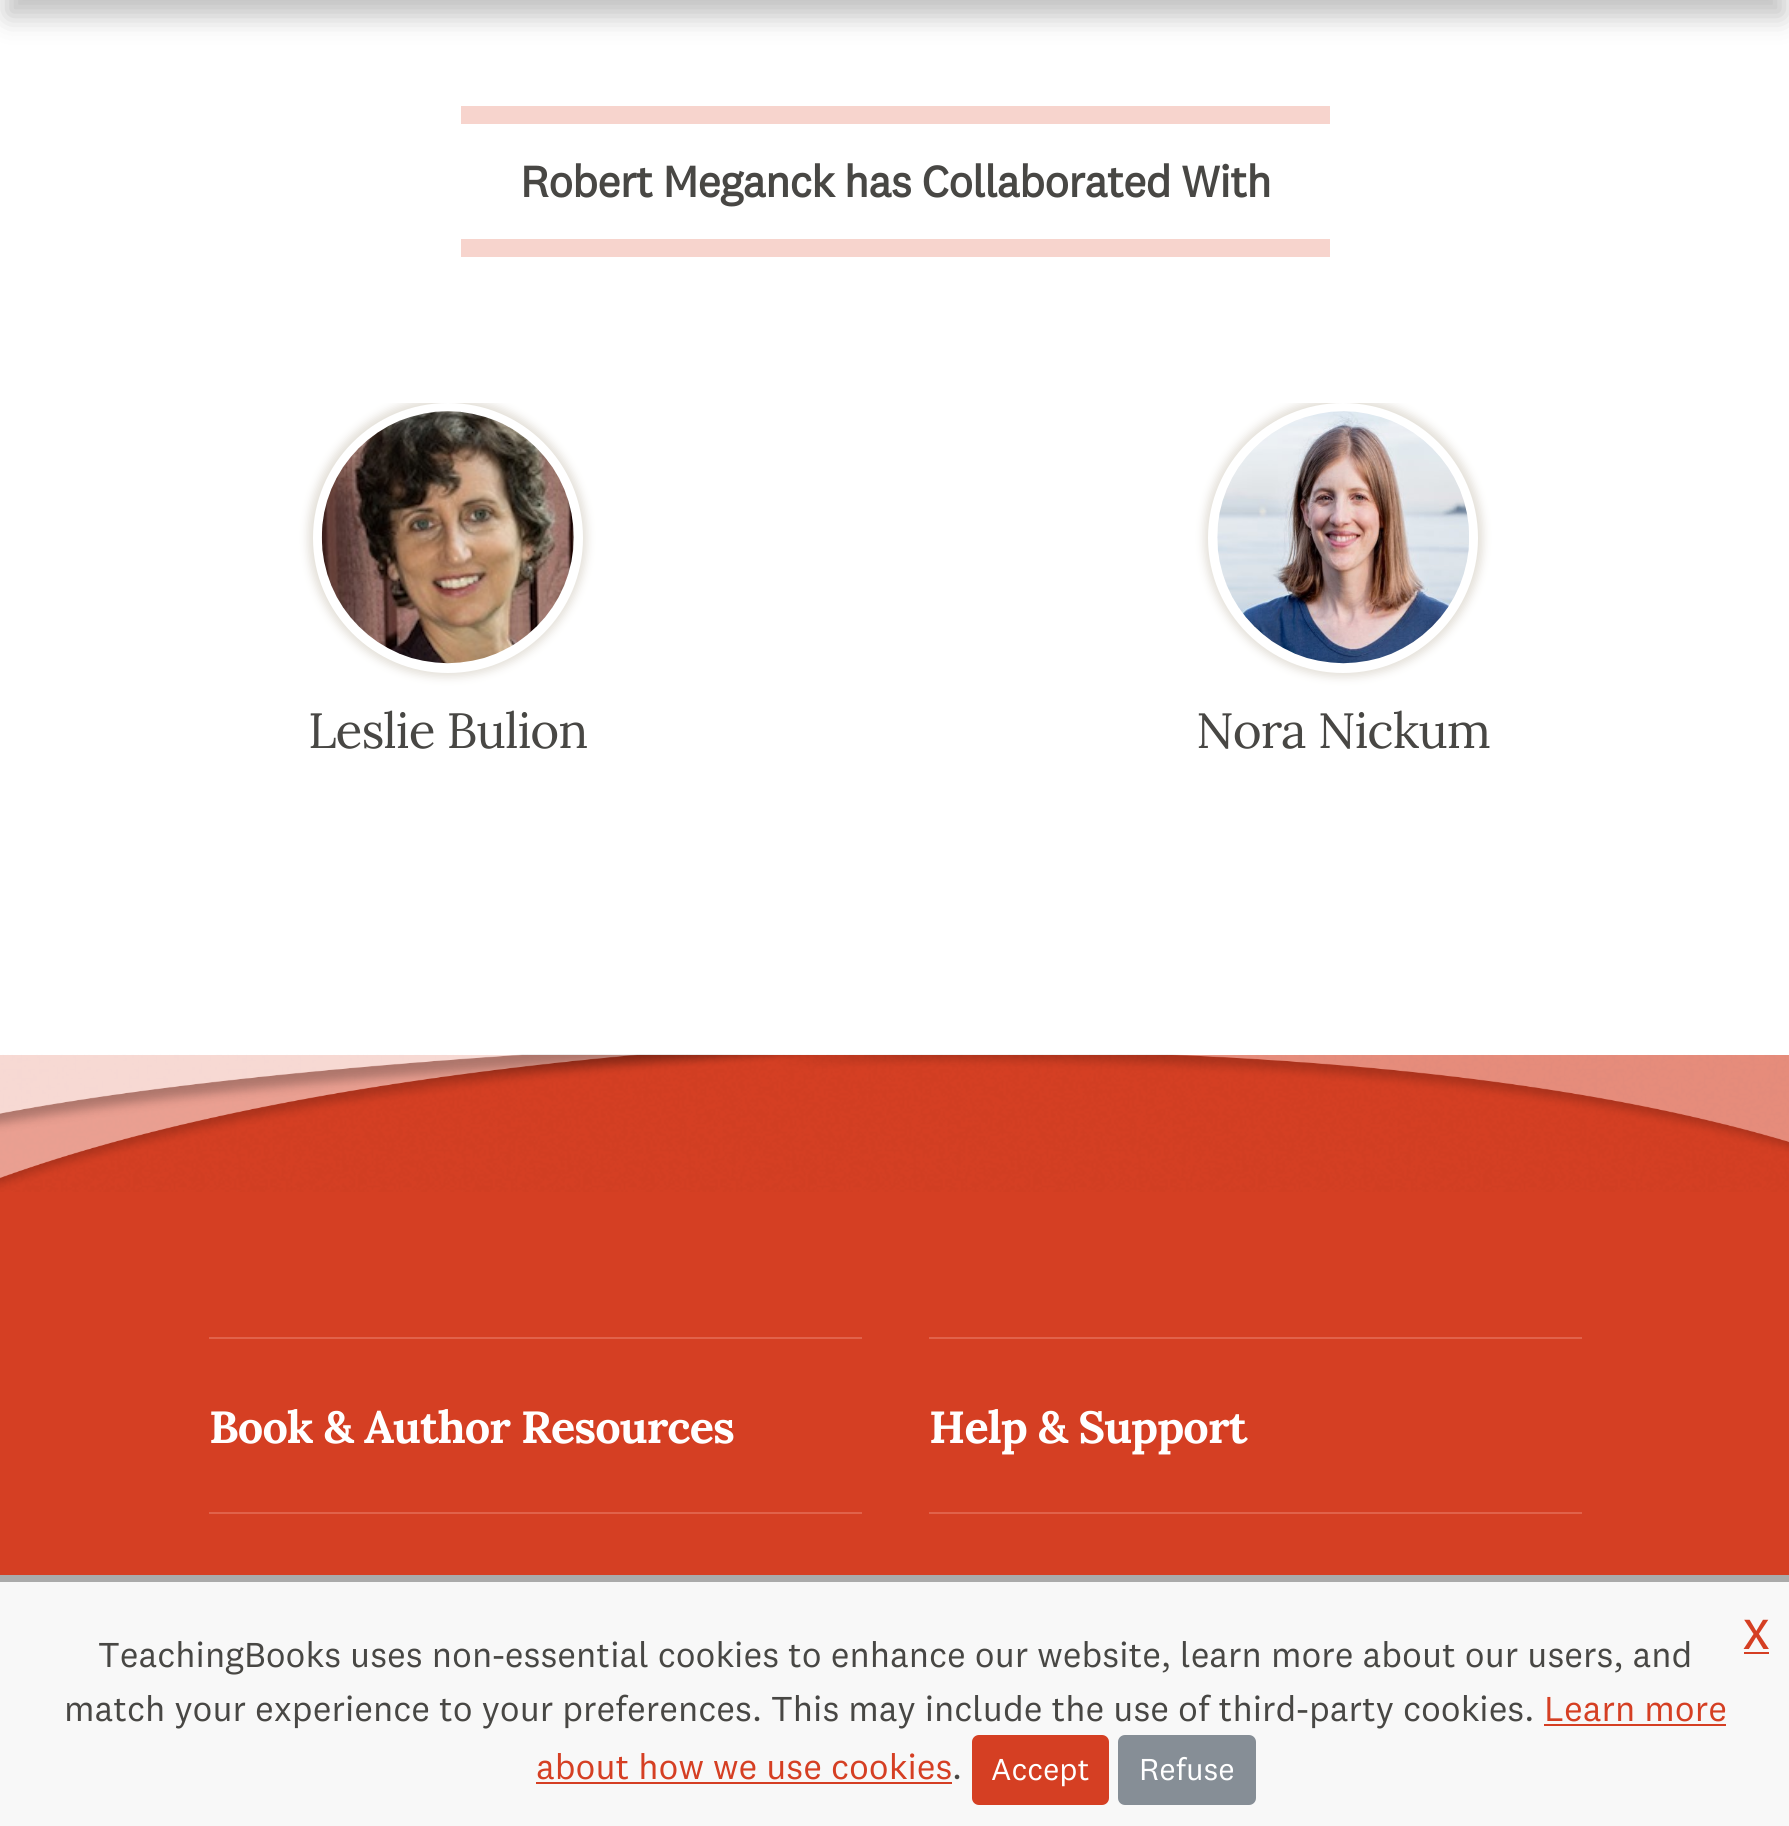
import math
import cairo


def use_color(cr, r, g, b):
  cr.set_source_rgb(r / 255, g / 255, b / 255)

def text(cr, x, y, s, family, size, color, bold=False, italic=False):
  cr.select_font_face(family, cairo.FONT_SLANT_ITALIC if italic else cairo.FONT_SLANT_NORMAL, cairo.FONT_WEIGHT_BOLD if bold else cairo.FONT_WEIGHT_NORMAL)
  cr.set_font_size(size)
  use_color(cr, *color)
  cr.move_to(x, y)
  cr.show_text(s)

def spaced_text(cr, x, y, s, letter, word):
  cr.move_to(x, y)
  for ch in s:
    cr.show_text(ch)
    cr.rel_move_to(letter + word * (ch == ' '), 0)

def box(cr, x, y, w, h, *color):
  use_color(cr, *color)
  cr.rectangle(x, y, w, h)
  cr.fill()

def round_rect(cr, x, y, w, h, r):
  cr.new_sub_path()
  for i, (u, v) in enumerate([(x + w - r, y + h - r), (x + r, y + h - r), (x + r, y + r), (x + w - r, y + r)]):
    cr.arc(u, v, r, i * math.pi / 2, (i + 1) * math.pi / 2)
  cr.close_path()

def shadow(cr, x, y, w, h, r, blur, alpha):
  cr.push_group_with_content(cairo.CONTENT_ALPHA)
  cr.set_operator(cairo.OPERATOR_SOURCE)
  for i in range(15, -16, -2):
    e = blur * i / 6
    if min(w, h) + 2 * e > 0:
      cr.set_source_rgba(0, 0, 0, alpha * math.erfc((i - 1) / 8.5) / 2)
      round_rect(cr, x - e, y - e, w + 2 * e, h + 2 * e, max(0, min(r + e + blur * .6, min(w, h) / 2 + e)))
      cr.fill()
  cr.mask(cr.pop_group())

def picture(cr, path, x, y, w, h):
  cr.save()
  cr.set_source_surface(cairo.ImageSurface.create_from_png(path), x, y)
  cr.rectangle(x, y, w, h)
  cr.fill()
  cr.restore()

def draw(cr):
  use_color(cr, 255, 255, 255)
  cr.paint()
  use_color(cr, 0, 0, 0)
  shadow(cr, 7, -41, 1777, 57, 0, 13.5, 0.25)
  box(cr, 461, 106, 869, 18, 247, 212, 205)
  box(cr, 461, 239, 869, 18, 247, 212, 205)
  cr.save()
  cr.rectangle(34, 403, 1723, 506)
  cr.clip()
  use_color(cr, 200, 192, 177)
  shadow(cr, 308, 398, 279, 279, 139.5, 4.5, 0.5)
  cr.restore()
  use_color(cr, 255, 255, 255)
  cr.arc(448, 538, 130.5, 0, 2 * math.pi)
  cr.fill_preserve()
  cr.set_line_width(9)
  cr.stroke()
  picture(cr, "img_01.png", 321, 411, 253, 253)
  cr.save()
  cr.rectangle(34, 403, 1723, 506)
  cr.clip()
  use_color(cr, 200, 192, 177)
  shadow(cr, 1204, 398, 279, 279, 139.5, 4.5, 0.5)
  cr.restore()
  cr.arc(1343, 538, 130.5, 0, 2 * math.pi)
  cr.fill_preserve()
  cr.stroke()
  picture(cr, "img_02.png", 1217, 411, 252, 253)
  box(cr, 0, 1055, 1789, 520, 213, 63, 35)
  picture(cr, "img_03.png", 0, 1054, 1789, 138)
  box(cr, 209, 1337, 653, 2, 225, 98, 74)
  box(cr, 209, 1512, 653, 2, 225, 98, 74)
  box(cr, 929, 1337, 653, 2, 225, 98, 74)
  box(cr, 929, 1512, 653, 2, 225, 98, 74)
  box(cr, 0, 1582, 1789, 244, 248, 248, 248)
  box(cr, 0, 1575, 1789, 7, 170, 170, 170)
  box(cr, 1744, 1652, 25, 2, 213, 63, 35)
  box(cr, 1544, 1724, 182, 2, 213, 63, 35)
  box(cr, 536, 1782, 416, 2, 213, 63, 35)
  round_rect(cr, 973, 1736, 135, 68, 6)
  cr.fill_preserve()
  cr.set_line_width(2)
  cr.stroke()
  use_color(cr, 134, 142, 150)
  round_rect(cr, 1119, 1736, 136, 68, 6)
  cr.fill_preserve()
  cr.stroke()
  cr.select_font_face("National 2", cairo.FONT_SLANT_NORMAL, cairo.FONT_WEIGHT_BOLD)
  cr.set_font_size(45)
  use_color(cr, 72, 71, 68)
  spaced_text(cr, 520, 197, "Robert Meganck has Collaborated With", -0.9, 0)
  cr.select_font_face("Lora")
  cr.set_font_size(49.5)
  spaced_text(cr, 308, 748, "Leslie Bulion", -1, 0)
  spaced_text(cr, 1196, 748, "Nora Nickum", -1, 0)
  cr.select_font_face("Lora", cairo.FONT_SLANT_NORMAL, cairo.FONT_WEIGHT_BOLD)
  cr.set_font_size(45)
  use_color(cr, 255, 255, 255)
  spaced_text(cr, 209, 1443, "Book & Author Resources", -0.9, 0)
  spaced_text(cr, 929, 1443, "Help & Support", -0.9, 0)
  text(cr, 1743, 1649, "X", "National 2", 42, (213, 63, 35), bold=True)
  text(cr, 98, 1667, "TeachingBooks uses non-essential cookies to enhance our website, learn more about our users, and", "National 2", 36, (72, 71, 68))
  text(cr, 64, 1721, "match your experience to your preferences. This may include the use of third-party cookies.", "National 2", 36, (72, 71, 68))
  text(cr, 1544, 1721, "Learn more", "National 2", 36, (213, 63, 35))
  text(cr, 536, 1779, "about how we use cookies", "National 2", 36, (213, 63, 35))
  text(cr, 952, 1779, ".", "National 2", 36, (72, 71, 68))
  text(cr, 991, 1780, "Accept", "National 2", 31.5, (255, 255, 255))
  text(cr, 1139, 1780, "Refuse", "National 2", 31.5, (255, 255, 255))


surface = cairo.ImageSurface(cairo.FORMAT_RGB24, 1789, 1826)
cr = cairo.Context(surface)
options = cairo.FontOptions()
options.set_hint_metrics(cairo.HINT_METRICS_OFF)
options.set_hint_style(cairo.HINT_STYLE_NONE)
cr.set_font_options(options)
cr.set_miter_limit(4)
draw(cr)
surface.write_to_png("out.png")
